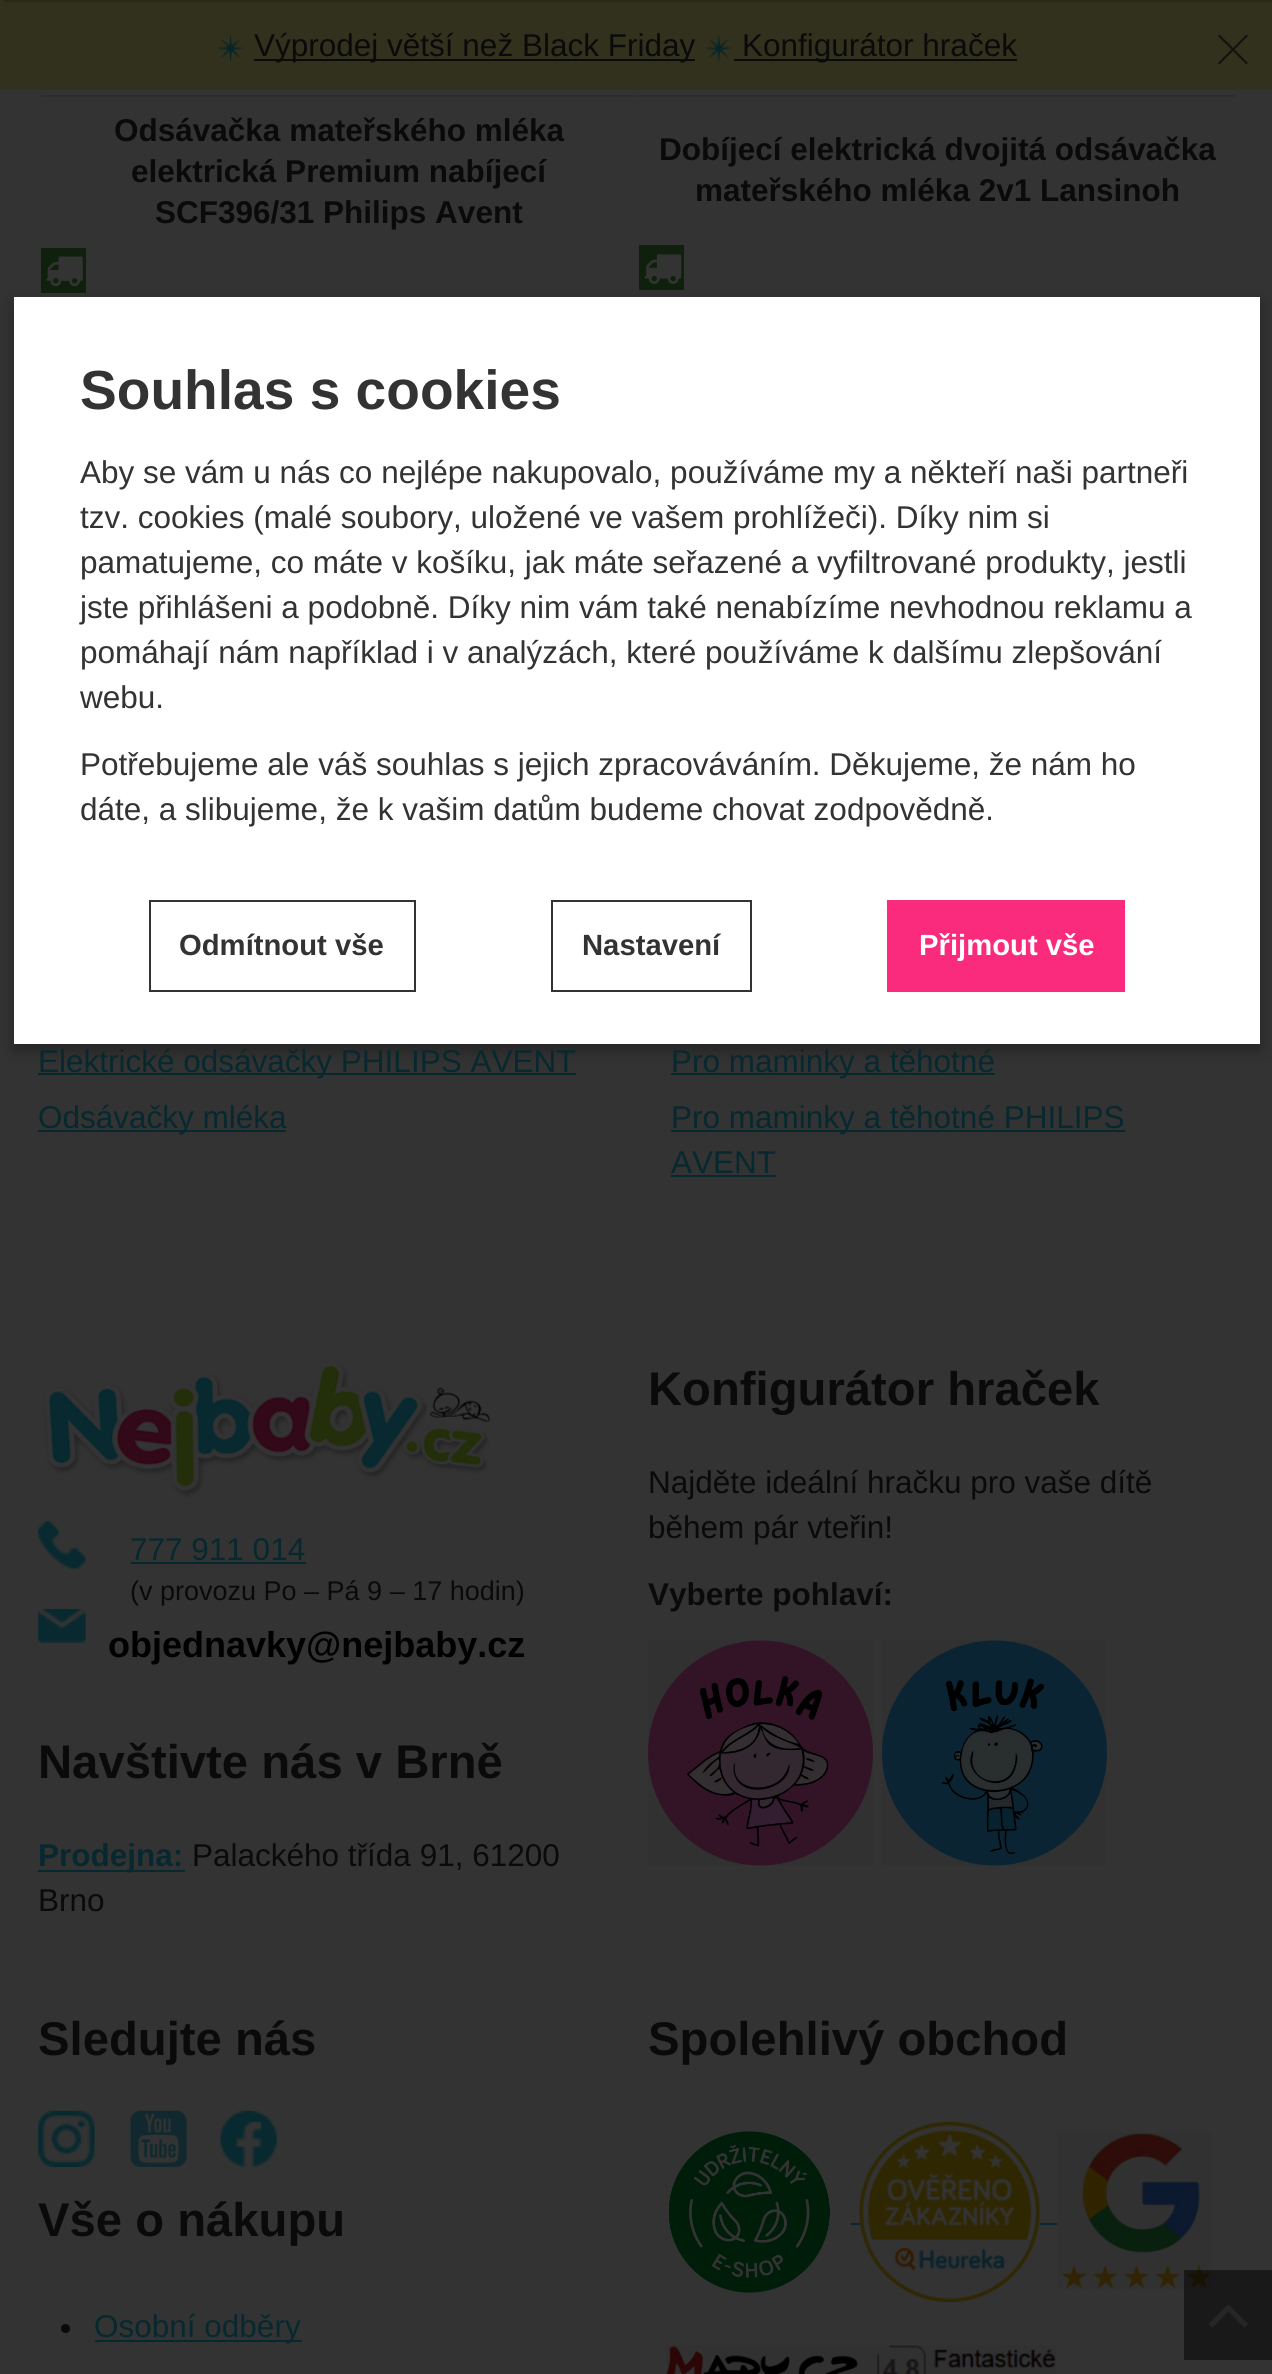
import math
import cairo


def use_color(cr, r, g, b):
  cr.set_source_rgb(r / 255, g / 255, b / 255)

def text(cr, x, y, s, family, size, color, bold=False, italic=False):
  cr.select_font_face(family, cairo.FONT_SLANT_ITALIC if italic else cairo.FONT_SLANT_NORMAL, cairo.FONT_WEIGHT_BOLD if bold else cairo.FONT_WEIGHT_NORMAL)
  cr.set_font_size(size)
  use_color(cr, *color)
  cr.move_to(x, y)
  cr.show_text(s)

def box(cr, x, y, w, h, *color):
  use_color(cr, *color)
  cr.rectangle(x, y, w, h)
  cr.fill()

def round_rect(cr, x, y, w, h, r):
  cr.new_sub_path()
  for i, (u, v) in enumerate([(x + w - r, y + h - r), (x + r, y + h - r), (x + r, y + r), (x + w - r, y + r)]):
    cr.arc(u, v, r, i * math.pi / 2, (i + 1) * math.pi / 2)
  cr.close_path()

def shadow(cr, x, y, w, h, r, blur, alpha):
  cr.push_group_with_content(cairo.CONTENT_ALPHA)
  cr.set_operator(cairo.OPERATOR_SOURCE)
  for i in range(15, -16, -2):
    e = blur * i / 6
    if min(w, h) + 2 * e > 0:
      cr.set_source_rgba(0, 0, 0, alpha * math.erfc((i - 1) / 8.5) / 2)
      round_rect(cr, x - e, y - e, w + 2 * e, h + 2 * e, max(0, min(r + e + blur * .6, min(w, h) / 2 + e)))
      cr.fill()
  cr.mask(cr.pop_group())

def picture(cr, path, x, y, w, h):
  cr.save()
  cr.set_source_surface(cairo.ImageSurface.create_from_png(path), x, y)
  cr.rectangle(x, y, w, h)
  cr.fill()
  cr.restore()

def draw(cr):
  use_color(cr, 51, 51, 51)
  cr.paint()
  box(cr, 0, 0, 1272, 90, 50, 49, 29)
  picture(cr, "img_01.png", 216, 34, 29, 30)
  box(cr, 254, 59, 441, 2, 10, 10, 10)
  picture(cr, "img_02.png", 705, 34, 28, 29)
  box(cr, 734, 59, 283, 2, 10, 10, 10)
  use_color(cr, 18, 18, 14)
  cr.new_path()
  cr.move_to(1246.5, 34.5)
  cr.line_to(1248, 36)
  cr.line_to(1219.5, 64.5)
  cr.line_to(1218, 63)
  cr.close_path()
  cr.fill()
  cr.new_path()
  cr.move_to(1218, 36)
  cr.line_to(1219.5, 34.5)
  cr.line_to(1248, 63)
  cr.line_to(1246.5, 64.5)
  cr.close_path()
  cr.fill()
  use_color(cr, 0, 0, 0)
  shadow(cr, 5, -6, 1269, 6, 0, 2, 0.5)
  box(cr, 41, 95, 596, 2, 45, 45, 45)
  box(cr, 41, 248, 45, 45, 15, 33, 12)
  picture(cr, "img_03.png", 46, 256, 37, 31)
  box(cr, 639, 95, 596, 2, 45, 45, 45)
  box(cr, 639, 245, 45, 45, 15, 33, 12)
  picture(cr, "img_04.png", 644, 254, 38, 30)
  box(cr, 38, 1073, 538, 2, 7, 40, 46)
  box(cr, 671, 1073, 324, 2, 7, 40, 46)
  box(cr, 38, 1130, 248, 2, 7, 40, 46)
  box(cr, 671, 1130, 454, 2, 7, 40, 46)
  box(cr, 671, 1175, 105, 2, 7, 40, 46)
  picture(cr, "img_05.png", 648, 1640, 225, 226)
  picture(cr, "img_06.png", 882, 1640, 225, 226)
  picture(cr, "img_07.png", 43, 1362, 448, 136)
  picture(cr, "img_08.png", 38, 1521, 48, 49)
  box(cr, 131, 1562, 175, 2, 7, 40, 46)
  picture(cr, "img_09.png", 38, 1609, 48, 34)
  box(cr, 38, 1870, 147, 2, 7, 40, 46)
  picture(cr, "img_10.png", 38, 2110, 57, 57)
  picture(cr, "img_11.png", 130, 2110, 57, 57)
  picture(cr, "img_12.png", 220, 2110, 57, 57)
  use_color(cr, 10, 10, 10)
  cr.arc(65.5, 2328.5, 4.5, 0, 2 * math.pi)
  cr.fill()
  box(cr, 95, 2340, 207, 2, 7, 40, 46)
  picture(cr, "img_13.png", 668, 2131, 162, 162)
  box(cr, 851, 2223, 9, 2, 7, 40, 46)
  picture(cr, "img_14.png", 859, 2122, 181, 180)
  box(cr, 1040, 2223, 18, 2, 7, 40, 46)
  picture(cr, "img_15.png", 1057, 2133, 155, 156)
  picture(cr, "img_16.png", 666, 2345, 390, 29)
  use_color(cr, 0, 0, 0)
  shadow(cr, 14, 304, 1246, 747, 0, 8, 0.3)
  box(cr, 14, 297, 1246, 747, 255, 255, 255)
  cr.rectangle(150, 901, 265, 90)
  use_color(cr, 51, 51, 51)
  cr.stroke()
  cr.rectangle(552, 901, 199, 90)
  cr.stroke()
  box(cr, 887, 900, 238, 92, 250, 43, 125)
  cr.set_source_rgba(0, 0, 0, 0.5)
  cr.rectangle(1184, 2270, 88, 90)
  cr.fill()
  picture(cr, "img_17.png", 1209, 2304, 39, 24)
  text(cr, 254, 56, "Výprodej větší než Black Friday", "Liberation Sans", 31.5, (10, 10, 10))
  text(cr, 742, 56, "Konfigurátor hraček", "Liberation Sans", 31.5, (10, 10, 10))
  text(cr, 114, 141, "Odsávačka mateřského mléka", "Liberation Sans", 31.5, (10, 10, 10), bold=True)
  text(cr, 131, 182, "elektrická Premium nabíjecí", "Liberation Sans", 31.5, (10, 10, 10), bold=True)
  text(cr, 155, 223, "SCF396/31 Philips Avent", "Liberation Sans", 31.5, (10, 10, 10), bold=True)
  text(cr, 659, 160, "Dobíjecí elektrická dvojitá odsávačka", "Liberation Sans", 31.5, (10, 10, 10), bold=True)
  text(cr, 695, 201, "mateřského mléka 2v1 Lansinoh", "Liberation Sans", 31.5, (10, 10, 10), bold=True)
  text(cr, 38, 1072, "Elektrické odsávačky PHILIPS AVENT", "Liberation Sans", 31.5, (7, 40, 46))
  text(cr, 671, 1072, "Pro maminky a těhotné", "Liberation Sans", 31.5, (7, 40, 46))
  text(cr, 38, 1128, "Odsávačky mléka", "Liberation Sans", 31.5, (7, 40, 46))
  text(cr, 671, 1128, "Pro maminky a těhotné PHILIPS", "Liberation Sans", 31.5, (7, 40, 46))
  text(cr, 671, 1173, "AVENT", "Liberation Sans", 31.5, (7, 40, 46))
  text(cr, 648, 1405, "Konfigurátor hraček", "Liberation Sans", 47.25, (10, 10, 10), bold=True)
  text(cr, 648, 1493, "Najděte ideální hračku pro vaše dítě", "Liberation Sans", 31.5, (10, 10, 10))
  text(cr, 648, 1538, "během pár vteřin!", "Liberation Sans", 31.5, (10, 10, 10))
  text(cr, 648, 1605, "Vyberte pohlaví:", "Liberation Sans", 31.5, (10, 10, 10), bold=True)
  text(cr, 130, 1560, "777 911 014", "Liberation Sans", 31.5, (7, 40, 46))
  text(cr, 130, 1600, "(v provozu Po – Pá 9 – 17 hodin)", "Liberation Sans", 27, (10, 10, 10))
  text(cr, 108, 1657, "objednavky@nejbaby.cz", "Liberation Sans", 36, (0, 0, 0), bold=True)
  text(cr, 38, 1778, "Navštivte nás v Brně", "Liberation Sans", 47.25, (10, 10, 10), bold=True)
  text(cr, 38, 1866, "Prodejna:", "Liberation Sans", 31.5, (7, 40, 46), bold=True)
  text(cr, 192, 1866, "Palackého třída 91, 61200", "Liberation Sans", 31.5, (10, 10, 10))
  text(cr, 38, 1911, "Brno", "Liberation Sans", 31.5, (10, 10, 10))
  text(cr, 38, 2055, "Sledujte nás", "Liberation Sans", 47.25, (10, 10, 10), bold=True)
  text(cr, 38, 2236, "Vše o nákupu", "Liberation Sans", 47.25, (10, 10, 10), bold=True)
  text(cr, 94, 2337, "Osobní odběry", "Liberation Sans", 31.5, (7, 40, 46))
  text(cr, 648, 2055, "Spolehlivý obchod", "Liberation Sans", 47.25, (10, 10, 10), bold=True)
  text(cr, 80, 409, "Souhlas s cookies", "Liberation Sans", 55.1, (51, 51, 51), bold=True)
  text(cr, 80, 483, "Aby se vám u nás co nejlépe nakupovalo, používáme my a někteří naši partneři", "Liberation Sans", 31.5, (51, 51, 51))
  text(cr, 80, 528, "tzv. cookies (malé soubory, uložené ve vašem prohlížeči). Díky nim si", "Liberation Sans", 31.5, (51, 51, 51))
  text(cr, 80, 573, "pamatujeme, co máte v košíku, jak máte seřazené a vyfiltrované produkty, jestli", "Liberation Sans", 31.5, (51, 51, 51))
  text(cr, 80, 618, "jste přihlášeni a podobně. Díky nim vám také nenabízíme nevhodnou reklamu a", "Liberation Sans", 31.5, (51, 51, 51))
  text(cr, 80, 663, "pomáhají nám například i v analýzách, které používáme k dalšímu zlepšování", "Liberation Sans", 31.5, (51, 51, 51))
  text(cr, 80, 708, "webu.", "Liberation Sans", 31.5, (51, 51, 51))
  text(cr, 80, 775, "Potřebujeme ale váš souhlas s jejich zpracováváním. Děkujeme, že nám ho", "Liberation Sans", 31.5, (51, 51, 51))
  text(cr, 80, 820, "dáte, a slibujeme, že k vašim datům budeme chovat zodpovědně.", "Liberation Sans", 31.5, (51, 51, 51))
  text(cr, 179, 955, "Odmítnout vše", "Liberation Sans", 29.25, (51, 51, 51), bold=True)
  text(cr, 582, 955, "Nastavení", "Liberation Sans", 29.25, (51, 51, 51), bold=True)
  text(cr, 919, 955, "Přijmout vše", "Liberation Sans", 29.25, (255, 255, 255), bold=True)


surface = cairo.ImageSurface(cairo.FORMAT_RGB24, 1272, 2374)
cr = cairo.Context(surface)
options = cairo.FontOptions()
options.set_hint_metrics(cairo.HINT_METRICS_OFF)
options.set_hint_style(cairo.HINT_STYLE_NONE)
cr.set_font_options(options)
cr.set_miter_limit(4)
draw(cr)
surface.write_to_png("out.png")
